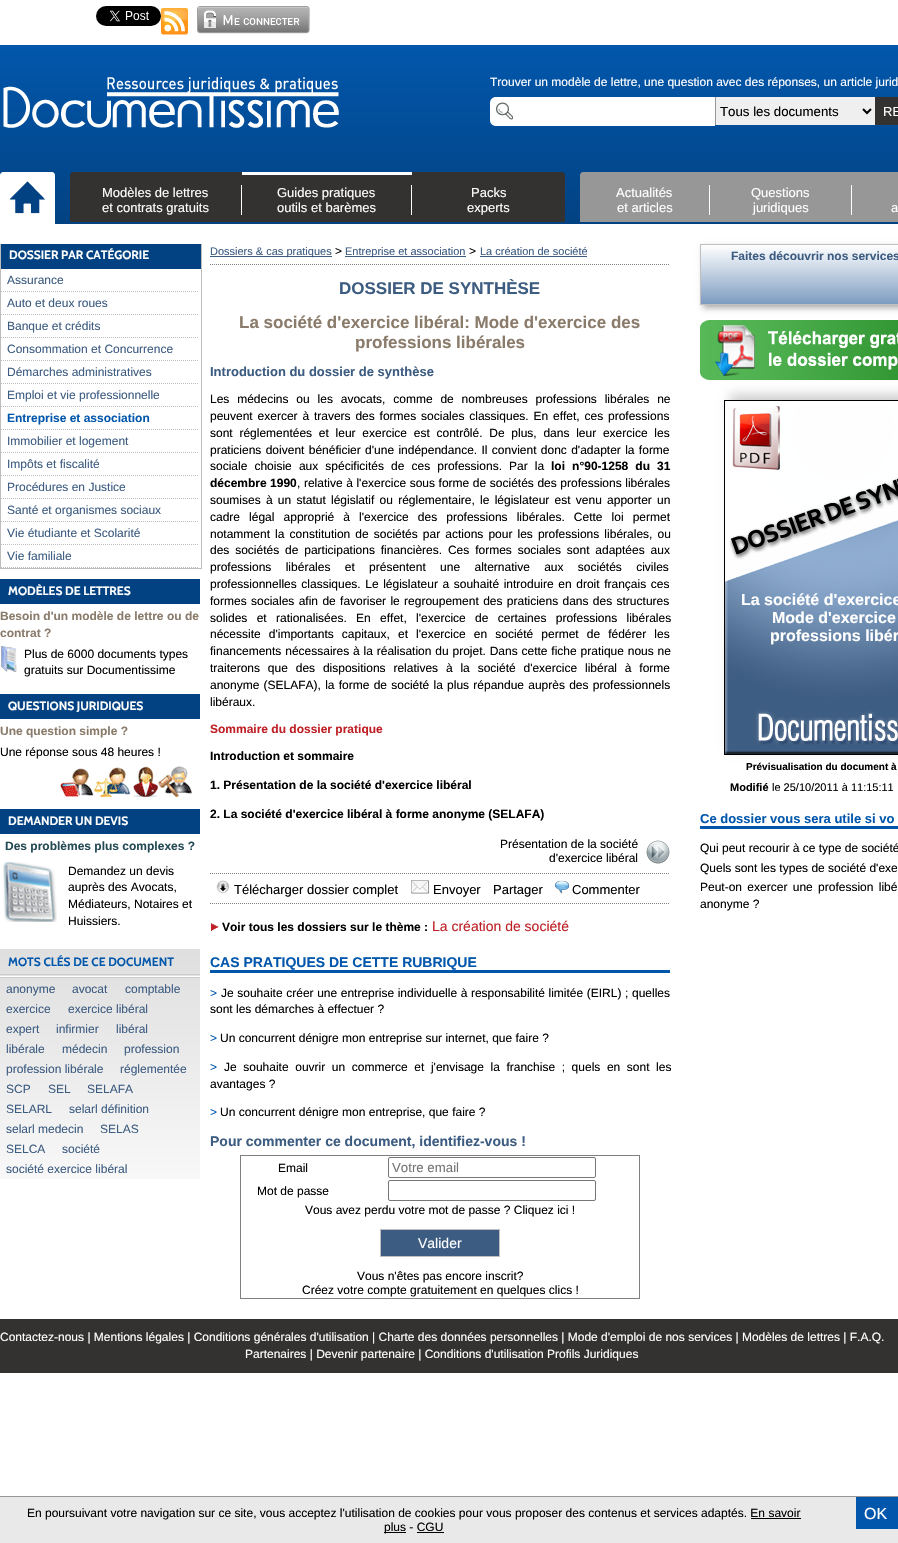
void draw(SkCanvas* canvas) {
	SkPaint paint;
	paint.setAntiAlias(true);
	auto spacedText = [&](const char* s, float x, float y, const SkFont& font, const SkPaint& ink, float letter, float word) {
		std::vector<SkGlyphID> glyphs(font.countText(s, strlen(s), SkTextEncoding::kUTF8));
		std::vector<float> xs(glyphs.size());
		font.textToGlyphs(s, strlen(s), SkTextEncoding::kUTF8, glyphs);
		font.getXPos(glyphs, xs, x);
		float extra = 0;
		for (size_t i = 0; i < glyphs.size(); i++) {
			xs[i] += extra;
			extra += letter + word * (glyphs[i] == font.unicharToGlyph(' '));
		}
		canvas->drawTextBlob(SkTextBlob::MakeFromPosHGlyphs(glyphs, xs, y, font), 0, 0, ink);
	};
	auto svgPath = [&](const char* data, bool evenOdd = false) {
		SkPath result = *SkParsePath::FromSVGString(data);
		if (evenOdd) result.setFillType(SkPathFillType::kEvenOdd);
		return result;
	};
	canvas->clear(0xffffffff);
	canvas->drawImageRect(SkImages::DeferredFromEncodedData(SkData::MakeFromFileName("img1.png")), SkRect::MakeXYWH(96, 6, 65, 20), SkSamplingOptions());
	canvas->drawImageRect(SkImages::DeferredFromEncodedData(SkData::MakeFromFileName("img2.png")), SkRect::MakeXYWH(161, 8, 27, 27), SkSamplingOptions());
	canvas->drawImageRect(SkImages::DeferredFromEncodedData(SkData::MakeFromFileName("img3.png")), SkRect::MakeXYWH(197, 6, 113, 28), SkSamplingOptions());
	{
		const SkColor colors[] = {0xff024282, 0xff0257ac};
		const float stops[] = {0, 1};
		const SkPoint ends[] = {{449, 224}, {449, 45}};
		paint.setShader(SkGradientShader::MakeLinear(ends, colors, stops, 2, SkTileMode::kClamp));
		paint.setAlpha(255);
	}
	canvas->drawRect(SkRect::MakeXYWH(0, 45, 898, 179), paint);
	canvas->drawImageRect(SkImages::DeferredFromEncodedData(SkData::MakeFromFileName("img4.png")), SkRect::MakeXYWH(3, 77, 336, 51), SkSamplingOptions());
	SkFont f1(fontMgr->matchFamilyStyle("Liberation Sans", SkFontStyle::Normal()), 12);
	f1.setSubpixel(true);
	paint.setShader(nullptr);
	paint.setColor(0xffffffff);
	canvas->drawString("Trouver un modèle de lettre, une question avec des réponses, un article jurid", 490, 86, f1, paint);
	canvas->drawPath(svgPath("M496 97H715V126H496C492.5 126 490 123.5 490 120V103C490 99.5 492.5 97 496 97Z"), paint);
	canvas->drawImageRect(SkImages::DeferredFromEncodedData(SkData::MakeFromFileName("img5.png")), SkRect::MakeXYWH(496, 102, 17, 18), SkSamplingOptions());
	paint.setColor(0xffefefef);
	canvas->drawRect(SkRect::MakeXYWH(716, 97, 159, 28), paint);
	paint.setColor(0xff989797);
	canvas->drawRect(SkRect::MakeXYWH(715, 97, 1, 28), paint);
	paint.setStroke(true);
	paint.setStrokeWidth(2);
	paint.setColor(0xff000000);
	canvas->drawPath(svgPath("M863 109L867 113L871 109"), paint);
	SkFont f2(fontMgr->matchFamilyStyle("Liberation Sans", SkFontStyle::Normal()), 13.25);
	f2.setSubpixel(true);
	paint.setStroke(false);
	canvas->drawString("Tous les documents", 720, 116, f2, paint);
	paint.setColor(0xff333231);
	canvas->drawRect(SkRect::MakeXYWH(875, 97, 23, 28), paint);
	SkFont f3(fontMgr->matchFamilyStyle("Liberation Sans", SkFontStyle::Normal()), 13);
	f3.setSubpixel(true);
	paint.setColor(0xffffffff);
	canvas->drawString("RE", 883, 116, f3, paint);
	canvas->drawPath(svgPath("M3 172H52C53.5 172 55 173.5 55 175V226H0V175C0 173.5 1.5 172 3 172Z"), paint);
	canvas->drawImageRect(SkImages::DeferredFromEncodedData(SkData::MakeFromFileName("img6.png")), SkRect::MakeXYWH(10, 181, 35, 33), SkSamplingOptions());
	paint.setColor(0xff333231);
	canvas->drawPath(svgPath("M73 172H562C563.5 172 565 173.5 565 175V222H70V175C70 173.5 71.5 172 73 172Z"), paint);
	paint.setColor(0xffffffff);
	canvas->drawRect(SkRect::MakeXYWH(241, 185, 1, 30), paint);
	canvas->drawString("Modèles de lettres", 102, 197, f3, paint);
	canvas->drawString("et contrats gratuits", 102, 212, f3, paint);
	canvas->drawRect(SkRect::MakeXYWH(242, 172, 170, 3), paint);
	canvas->drawRect(SkRect::MakeXYWH(411, 185, 1, 30), paint);
	canvas->drawString("Guides pratiques", 277, 197, f3, paint);
	canvas->drawString("outils et barèmes", 277, 212, f3, paint);
	canvas->drawString("Packs", 471, 197, f3, paint);
	canvas->drawString("experts", 467, 212, f3, paint);
	paint.setColor(0xff989797);
	canvas->drawPath(svgPath("M583 172H898C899.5 172 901 173.5 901 175V222H580V175C580 173.5 581.5 172 583 172Z"), paint);
	paint.setColor(0xffffffff);
	canvas->drawRect(SkRect::MakeXYWH(709, 185, 1, 30), paint);
	canvas->drawString("Actualités", 616, 197, f3, paint);
	canvas->drawString("et articles", 617, 212, f3, paint);
	canvas->drawRect(SkRect::MakeXYWH(851, 185, 1, 30), paint);
	canvas->drawString("Questions", 751, 197, f3, paint);
	canvas->drawString("juridiques", 753, 212, f3, paint);
	canvas->drawString("a", 891, 212, f3, paint);
	paint.setColor(0xffbebebe);
	canvas->drawRect(SkRect::MakeXYWH(201, 244, 1, 325), paint);
	canvas->drawRect(SkRect::MakeXYWH(0, 568, 202, 1), paint);
	canvas->drawRect(SkRect::MakeXYWH(0, 244, 1, 325), paint);
	paint.setColor(0xff024282);
	canvas->drawRect(SkRect::MakeXYWH(1, 244, 200, 25), paint);
	SkFont f4(fontMgr->matchFamilyStyle("Cabin", SkFontStyle::Bold()), 12);
	f4.setSubpixel(true);
	paint.setColor(0xffffffff);
	canvas->drawString("DOSSIER PAR CATÉGORIE", 9, 259, f4, paint);
	paint.setStroke(true);
	paint.setStrokeWidth(1);
	paint.setColor(0xffbebebe);
	paint.setPathEffect(SkDashPathEffect::Make({{1, 1}}, 0));
	canvas->drawPath(svgPath("M1 291.5H199"), paint);
	paint.setPathEffect(nullptr);
	paint.setStroke(false);
	paint.setColor(0xff3d5c81);
	canvas->drawString("Assurance", 7, 284, f1, paint);
	paint.setStroke(true);
	paint.setColor(0xffbebebe);
	paint.setPathEffect(SkDashPathEffect::Make({{1, 1}}, 0));
	canvas->drawPath(svgPath("M1 314.5H199"), paint);
	paint.setPathEffect(nullptr);
	paint.setStroke(false);
	paint.setColor(0xff3d5c81);
	canvas->drawString("Auto et deux roues", 7, 307, f1, paint);
	paint.setStroke(true);
	paint.setColor(0xffbebebe);
	paint.setPathEffect(SkDashPathEffect::Make({{1, 1}}, 0));
	canvas->drawPath(svgPath("M1 337.5H199"), paint);
	paint.setPathEffect(nullptr);
	paint.setStroke(false);
	paint.setColor(0xff3d5c81);
	canvas->drawString("Banque et crédits", 7, 330, f1, paint);
	paint.setStroke(true);
	paint.setColor(0xffbebebe);
	paint.setPathEffect(SkDashPathEffect::Make({{1, 1}}, 0));
	canvas->drawPath(svgPath("M1 360.5H199"), paint);
	paint.setPathEffect(nullptr);
	paint.setStroke(false);
	paint.setColor(0xff3d5c81);
	canvas->drawString("Consommation et Concurrence", 7, 353, f1, paint);
	paint.setStroke(true);
	paint.setColor(0xffbebebe);
	paint.setPathEffect(SkDashPathEffect::Make({{1, 1}}, 0));
	canvas->drawPath(svgPath("M1 383.5H199"), paint);
	paint.setPathEffect(nullptr);
	paint.setStroke(false);
	paint.setColor(0xff3d5c81);
	canvas->drawString("Démarches administratives", 7, 376, f1, paint);
	paint.setStroke(true);
	paint.setColor(0xffbebebe);
	paint.setPathEffect(SkDashPathEffect::Make({{1, 1}}, 0));
	canvas->drawPath(svgPath("M1 406.5H199"), paint);
	paint.setPathEffect(nullptr);
	paint.setStroke(false);
	paint.setColor(0xff3d5c81);
	canvas->drawString("Emploi et vie professionnelle", 7, 399, f1, paint);
	paint.setStroke(true);
	paint.setColor(0xffbebebe);
	paint.setPathEffect(SkDashPathEffect::Make({{1, 1}}, 0));
	canvas->drawPath(svgPath("M1 429.5H199"), paint);
	paint.setPathEffect(nullptr);
	SkFont f5(fontMgr->matchFamilyStyle("Liberation Sans", SkFontStyle::Bold()), 12);
	f5.setSubpixel(true);
	paint.setStroke(false);
	paint.setColor(0xff0257ac);
	canvas->drawString("Entreprise et association", 7, 422, f5, paint);
	paint.setStroke(true);
	paint.setColor(0xffbebebe);
	paint.setPathEffect(SkDashPathEffect::Make({{1, 1}}, 0));
	canvas->drawPath(svgPath("M1 452.5H199"), paint);
	paint.setPathEffect(nullptr);
	paint.setStroke(false);
	paint.setColor(0xff3d5c81);
	canvas->drawString("Immobilier et logement", 7, 445, f1, paint);
	paint.setStroke(true);
	paint.setColor(0xffbebebe);
	paint.setPathEffect(SkDashPathEffect::Make({{1, 1}}, 0));
	canvas->drawPath(svgPath("M1 475.5H199"), paint);
	paint.setPathEffect(nullptr);
	paint.setStroke(false);
	paint.setColor(0xff3d5c81);
	canvas->drawString("Impôts et fiscalité", 7, 468, f1, paint);
	paint.setStroke(true);
	paint.setColor(0xffbebebe);
	paint.setPathEffect(SkDashPathEffect::Make({{1, 1}}, 0));
	canvas->drawPath(svgPath("M1 498.5H199"), paint);
	paint.setPathEffect(nullptr);
	paint.setStroke(false);
	paint.setColor(0xff3d5c81);
	canvas->drawString("Procédures en Justice", 7, 491, f1, paint);
	paint.setStroke(true);
	paint.setColor(0xffbebebe);
	paint.setPathEffect(SkDashPathEffect::Make({{1, 1}}, 0));
	canvas->drawPath(svgPath("M1 521.5H199"), paint);
	paint.setPathEffect(nullptr);
	paint.setStroke(false);
	paint.setColor(0xff3d5c81);
	canvas->drawString("Santé et organismes sociaux", 7, 514, f1, paint);
	paint.setStroke(true);
	paint.setColor(0xffbebebe);
	paint.setPathEffect(SkDashPathEffect::Make({{1, 1}}, 0));
	canvas->drawPath(svgPath("M1 544.5H199"), paint);
	paint.setPathEffect(nullptr);
	paint.setStroke(false);
	paint.setColor(0xff3d5c81);
	canvas->drawString("Vie étudiante et Scolarité", 7, 537, f1, paint);
	paint.setStroke(true);
	paint.setColor(0xffbebebe);
	paint.setPathEffect(SkDashPathEffect::Make({{1, 1}}, 0));
	canvas->drawPath(svgPath("M1 567.5H199"), paint);
	paint.setPathEffect(nullptr);
	paint.setStroke(false);
	paint.setColor(0xff3d5c81);
	canvas->drawString("Vie familiale", 7, 560, f1, paint);
	paint.setColor(0xff024282);
	canvas->drawRect(SkRect::MakeXYWH(0, 579, 200, 25), paint);
	paint.setColor(0xffffffff);
	canvas->drawString("MODÈLES DE LETTRES", 8, 595, f4, paint);
	paint.setColor(0xff8a7b6b);
	canvas->drawString("Besoin d'un modèle de lettre ou de", 0, 620, f5, paint);
	canvas->drawString("contrat ?", 0, 637, f5, paint);
	canvas->drawImageRect(SkImages::DeferredFromEncodedData(SkData::MakeFromFileName("img7.png")), SkRect::MakeXYWH(1, 646, 16, 26), SkSamplingOptions());
	paint.setColor(0xff000000);
	canvas->drawString("Plus de 6000 documents types", 24, 658, f1, paint);
	canvas->drawString("gratuits sur Documentissime", 24, 674, f1, paint);
	paint.setColor(0xff024282);
	canvas->drawRect(SkRect::MakeXYWH(0, 694, 200, 25), paint);
	paint.setColor(0xffffffff);
	canvas->drawString("QUESTIONS JURIDIQUES", 8, 710, f4, paint);
	paint.setColor(0xff8a7b6b);
	canvas->drawString("Une question simple ?", 0, 735, f5, paint);
	paint.setColor(0xff000000);
	canvas->drawString("Une réponse sous 48 heures !", 0, 756, f1, paint);
	canvas->drawImageRect(SkImages::DeferredFromEncodedData(SkData::MakeFromFileName("img8.png")), SkRect::MakeXYWH(60, 766, 132, 32), SkSamplingOptions());
	paint.setColor(0xff024282);
	canvas->drawRect(SkRect::MakeXYWH(0, 809, 200, 25), paint);
	paint.setColor(0xffffffff);
	canvas->drawString("DEMANDER UN DEVIS", 8, 825, f4, paint);
	paint.setColor(0xff244a55);
	canvas->drawString("Des problèmes plus complexes ?", 5, 850, f5, paint);
	canvas->drawImageRect(SkImages::DeferredFromEncodedData(SkData::MakeFromFileName("img9.png")), SkRect::MakeXYWH(3, 862, 54, 60), SkSamplingOptions());
	paint.setColor(0xff000000);
	canvas->drawString("Demandez un devis", 68, 875, f1, paint);
	canvas->drawString("auprès des Avocats,", 68, 891, f1, paint);
	canvas->drawString("Médiateurs, Notaires et", 68, 908, f1, paint);
	canvas->drawString("Huissiers.", 68, 925, f1, paint);
	{
		const SkColor colors[] = {0xfff8f8f8, 0xffdfdfdf};
		const float stops[] = {0, 1};
		const SkPoint ends[] = {{100, 1179}, {100, 949}};
		paint.setShader(SkGradientShader::MakeLinear(ends, colors, stops, 2, SkTileMode::kClamp));
		paint.setAlpha(255);
	}
	canvas->drawRect(SkRect::MakeXYWH(0, 949, 200, 230), paint);
	paint.setShader(nullptr);
	paint.setColor(0xff0257ac);
	canvas->drawString("MOTS CLÉS DE CE DOCUMENT", 8, 966, f4, paint);
	paint.setColor(0xffcccccc);
	canvas->drawRect(SkRect::MakeXYWH(0, 974, 200, 1), paint);
	paint.setColor(0xffffffff);
	canvas->drawRect(SkRect::MakeXYWH(0, 976, 200, 1), paint);
	paint.setColor(0xffcccccc);
	canvas->drawRect(SkRect::MakeXYWH(0, 977, 200, 1), paint);
	paint.setColor(0xff3d5c81);
	canvas->drawString("anonyme", 6, 993, f1, paint);
	canvas->drawString("avocat", 72, 993, f1, paint);
	canvas->drawString("comptable", 125, 993, f1, paint);
	canvas->drawString("exercice", 6, 1013, f1, paint);
	canvas->drawString("exercice libéral", 68, 1013, f1, paint);
	canvas->drawString("expert", 6, 1033, f1, paint);
	canvas->drawString("infirmier", 56, 1033, f1, paint);
	canvas->drawString("libéral", 116, 1033, f1, paint);
	canvas->drawString("libérale", 6, 1053, f1, paint);
	canvas->drawString("médecin", 62, 1053, f1, paint);
	canvas->drawString("profession", 124, 1053, f1, paint);
	canvas->drawString("profession libérale", 6, 1073, f1, paint);
	canvas->drawString("réglementée", 120, 1073, f1, paint);
	canvas->drawString("SCP", 6, 1093, f1, paint);
	canvas->drawString("SEL", 48, 1093, f1, paint);
	canvas->drawString("SELAFA", 87, 1093, f1, paint);
	canvas->drawString("SELARL", 6, 1113, f1, paint);
	canvas->drawString("selarl définition", 69, 1113, f1, paint);
	canvas->drawString("selarl medecin", 6, 1133, f1, paint);
	canvas->drawString("SELAS", 100, 1133, f1, paint);
	canvas->drawString("SELCA", 6, 1153, f1, paint);
	canvas->drawString("société", 62, 1153, f1, paint);
	canvas->drawString("société exercice libéral", 6, 1173, f1, paint);
	paint.setStroke(true);
	paint.setColor(0xff808080);
	paint.setPathEffect(SkDashPathEffect::Make({{1, 1}}, 0));
	canvas->drawPath(svgPath("M210 264.5H670"), paint);
	paint.setPathEffect(nullptr);
	paint.setStroke(false);
	paint.setColor(0xff3d5c81);
	canvas->drawRect(SkRect::MakeXYWH(210, 256, 122, 1), paint);
	SkFont f6(fontMgr->matchFamilyStyle("Liberation Sans", SkFontStyle::Normal()), 11);
	f6.setSubpixel(true);
	canvas->drawString("Dossiers & cas pratiques", 210, 255, f6, paint);
	paint.setColor(0xff000000);
	canvas->drawString(">", 335, 255, f1, paint);
	paint.setColor(0xff3d5c81);
	canvas->drawRect(SkRect::MakeXYWH(345, 256, 121, 1), paint);
	canvas->drawString("Entreprise et association", 345, 255, f6, paint);
	paint.setColor(0xff000000);
	canvas->drawString(">", 469, 255, f1, paint);
	paint.setColor(0xff3d5c81);
	canvas->drawString("La création de société", 480, 255, f6, paint);
	canvas->drawRect(SkRect::MakeXYWH(480, 256, 107, 1), paint);
	SkFont f7(fontMgr->matchFamilyStyle("Liberation Sans", SkFontStyle::Bold()), 17);
	f7.setSubpixel(true);
	canvas->drawString("DOSSIER DE SYNTHÈSE", 339, 294, f7, paint);
	paint.setColor(0xff8a7b6b);
	canvas->drawString("La société d'exercice libéral: Mode d'exercice des", 239, 328, f7, paint);
	canvas->drawString("professions libérales", 355, 348, f7, paint);
	SkFont f8(fontMgr->matchFamilyStyle("Liberation Sans", SkFontStyle::Bold()), 13);
	f8.setSubpixel(true);
	paint.setColor(0xff3d5c81);
	canvas->drawString("Introduction du dossier de synthèse", 210, 376, f8, paint);
	paint.setColor(0xff000000);
	spacedText("Les médecins ou les avocats, comme de nombreuses professions libérales ne", 210, 403, f1, paint, 0, 4.5);
	spacedText("peuvent exercer à travers des formes sociales classiques. En effet, ces professions", 210, 420, f1, paint, 0, 1.5);
	spacedText("sont réglementées et leur exercice est contrôlé. De plus, dans leur exercice les", 210, 437, f1, paint, 0, 3.4);
	spacedText("praticiens doivent bénéficier d'une indépendance. Il convient donc d'adapter la forme", 210, 454, f1, paint, 0, 1);
	spacedText("sociale choisie aux spécificités de ces professions. Par la", 210, 470, f1, paint, 0, 3.75);
	spacedText("loi n°90-1258 du 31", 551, 470, f5, paint, 0, 3.75);
	canvas->drawString("décembre 1990", 210, 487, f5, paint);
	spacedText(", relative à l'exercice sous forme de sociétés des professions libérales", 297, 487, f1, paint, 0, 0.25);
	spacedText("soumises à un statut législatif ou réglementaire, le législateur est venu apporter un", 210, 504, f1, paint, 0, 1.9);
	spacedText("cadre légal approprié à l'exercice des professions libérales. Cette loi permet", 210, 521, f1, paint, 0, 5.75);
	spacedText("notamment la constitution de sociétés par actions pour les professions libérales, ou", 210, 538, f1, paint, 0, 1.75);
	spacedText("des sociétés de participations financières. Ces formes sociales sont adaptées aux", 210, 554, f1, paint, 0, 2.5);
	spacedText("professions libérales et présentent une alternative aux sociétés civiles", 210, 571, f1, paint, 0, 11);
	spacedText("professionnelles classiques. Le législateur a souhaité introduire en droit français ces", 210, 588, f1, paint, 0, 1.25);
	spacedText("formes sociales afin de favoriser le regroupement des praticiens dans des structures", 210, 605, f1, paint, 0, 1);
	spacedText("solides et rationalisées. En effet, l'exercice de certaines professions libérales", 210, 622, f1, paint, 0, 6);
	spacedText("nécessite d'importants capitaux, et l'exercice en société permet de fédérer les", 210, 638, f1, paint, 0, 4.75);
	spacedText("financements nécessaires à la réalisation du projet. Dans cette fiche pratique nous ne", 210, 655, f1, paint, 0, 0.5);
	spacedText("traiterons que des dispositions relatives à la société d'exercice libéral à forme", 210, 672, f1, paint, 0, 4.5);
	spacedText("anonyme (SELAFA), la forme de société la plus répandue auprès des professionnels", 210, 689, f1, paint, 0, 0.9);
	canvas->drawString("libéraux.", 210, 706, f1, paint);
	paint.setColor(0xffbf2026);
	canvas->drawString("Sommaire du dossier pratique", 210, 733, f5, paint);
	paint.setColor(0xff000000);
	canvas->drawString("Introduction et sommaire", 210, 760, f5, paint);
	canvas->drawString("1. Présentation de la société d'exercice libéral", 210, 789, f5, paint);
	canvas->drawString("2. La société d'exercice libéral à forme anonyme (SELAFA)", 210, 818, f5, paint);
	canvas->drawString("Présentation de la société", 500, 848, f1, paint);
	canvas->drawString("d'exercice libéral", 549, 862, f1, paint);
	canvas->drawImageRect(SkImages::DeferredFromEncodedData(SkData::MakeFromFileName("img10.png")), SkRect::MakeXYWH(646, 840, 24, 24), SkSamplingOptions());
	paint.setStroke(true);
	paint.setColor(0xff808080);
	paint.setPathEffect(SkDashPathEffect::Make({{1, 1}}, 0));
	canvas->drawPath(svgPath("M210 873.5H670"), paint);
	paint.setPathEffect(nullptr);
	paint.setPathEffect(SkDashPathEffect::Make({{1, 1}}, 0));
	canvas->drawPath(svgPath("M210 903.5H670"), paint);
	paint.setPathEffect(nullptr);
	canvas->drawImageRect(SkImages::DeferredFromEncodedData(SkData::MakeFromFileName("img11.png")), SkRect::MakeXYWH(216, 880, 14, 14), SkSamplingOptions());
	paint.setStroke(false);
	paint.setColor(0xff000000);
	canvas->drawString("Télécharger dossier complet", 234, 894, f3, paint);
	canvas->drawImageRect(SkImages::DeferredFromEncodedData(SkData::MakeFromFileName("img12.png")), SkRect::MakeXYWH(411, 880, 19, 14), SkSamplingOptions());
	canvas->drawString("Envoyer", 433, 894, f3, paint);
	canvas->drawString("Partager", 493, 894, f3, paint);
	canvas->drawImageRect(SkImages::DeferredFromEncodedData(SkData::MakeFromFileName("img13.png")), SkRect::MakeXYWH(555, 880, 14, 14), SkSamplingOptions());
	canvas->drawString("Commenter", 572, 894, f3, paint);
	canvas->drawImageRect(SkImages::DeferredFromEncodedData(SkData::MakeFromFileName("img14.png")), SkRect::MakeXYWH(211, 923, 8, 8), SkSamplingOptions());
	canvas->drawString("Voir tous les dossiers sur le thème :", 222, 931, f5, paint);
	SkFont f9(fontMgr->matchFamilyStyle("Liberation Sans", SkFontStyle::Normal()), 14);
	f9.setSubpixel(true);
	paint.setColor(0xffbf2026);
	canvas->drawString("La création de société", 432, 931, f9, paint);
	paint.setColor(0xff0257ac);
	canvas->drawRect(SkRect::MakeXYWH(210, 970, 460, 3), paint);
	SkFont f10(fontMgr->matchFamilyStyle("Liberation Sans", SkFontStyle::Bold()), 14);
	f10.setSubpixel(true);
	canvas->drawString("CAS PRATIQUES DE CETTE RUBRIQUE", 210, 967, f10, paint);
	canvas->drawString(">", 210, 997, f1, paint);
	paint.setColor(0xff000000);
	spacedText("Je souhaite créer une entreprise individuelle à responsabilité limitée (EIRL) ; quelles", 221, 997, f1, paint, 0, 0.25);
	canvas->drawString("sont les démarches à effectuer ?", 210, 1013, f1, paint);
	paint.setColor(0xff0257ac);
	canvas->drawString(">", 210, 1042, f1, paint);
	paint.setColor(0xff000000);
	canvas->drawString("Un concurrent dénigre mon entreprise sur internet, que faire ?", 220, 1042, f1, paint);
	paint.setColor(0xff0257ac);
	canvas->drawString(">", 210, 1071, f1, paint);
	paint.setColor(0xff000000);
	spacedText("Je souhaite ouvrir un commerce et j'envisage la franchise ; quels en sont les", 224, 1071, f1, paint, 0, 3.25);
	canvas->drawString("avantages ?", 210, 1088, f1, paint);
	paint.setColor(0xff0257ac);
	canvas->drawString(">", 210, 1116, f1, paint);
	paint.setColor(0xff000000);
	canvas->drawString("Un concurrent dénigre mon entreprise, que faire ?", 220, 1116, f1, paint);
	paint.setColor(0xff3d5c81);
	canvas->drawString("Pour commenter ce document, identifiez-vous !", 210, 1146, f10, paint);
	paint.setColor(0xff808080);
	canvas->drawRect(SkRect::MakeXYWH(240, 1155, 400, 1), paint);
	canvas->drawRect(SkRect::MakeXYWH(639, 1155, 1, 144), paint);
	canvas->drawRect(SkRect::MakeXYWH(240, 1298, 400, 1), paint);
	canvas->drawRect(SkRect::MakeXYWH(240, 1155, 1, 144), paint);
	paint.setColor(0xff000000);
	canvas->drawString("Email", 278, 1172, f1, paint);
	paint.setStroke(true);
	paint.setColor(0xff767676);
	canvas->drawRoundRect(SkRect::MakeXYWH(388.5, 1157.5, 207, 20), 1.5, 1.5, paint);
	paint.setStroke(false);
	paint.setColor(0xff757575);
	canvas->drawString("Votre email", 392, 1172, f2, paint);
	paint.setColor(0xff000000);
	canvas->drawString("Mot de passe", 257, 1195, f1, paint);
	paint.setStroke(true);
	paint.setColor(0xff767676);
	canvas->drawRoundRect(SkRect::MakeXYWH(388.5, 1180.5, 207, 20), 1.5, 1.5, paint);
	paint.setStroke(false);
	paint.setColor(0xff000000);
	canvas->drawString("Vous avez perdu votre mot de passe ? Cliquez ici !", 305, 1214, f1, paint);
	paint.setColor(0xff3d5c81);
	canvas->drawRect(SkRect::MakeXYWH(380.5, 1229.5, 119, 27), paint);
	paint.setStroke(true);
	paint.setColor(0xffc0c0c0);
	canvas->drawRect(SkRect::MakeXYWH(380.5, 1229.5, 119, 27), paint);
	paint.setStroke(false);
	paint.setColor(0xffffffff);
	canvas->drawString("Valider", 418, 1248, f9, paint);
	paint.setColor(0xff000000);
	canvas->drawString("Vous n'êtes pas encore inscrit?", 357, 1280, f1, paint);
	canvas->drawString("Créez votre compte gratuitement en quelques clics !", 302, 1294, f1, paint);
	paint.setColor(0xffaaaaaa);
	paint.setMaskFilter(SkMaskFilter::MakeBlur(kNormal_SkBlurStyle, 3));
	canvas->drawRect(SkRect::MakeXYWH(703, 247, 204, 61), paint);
	paint.setMaskFilter(nullptr);
	{
		const SkColor colors[] = {0xffffffff, 0xff7d9cc1};
		const float stops[] = {0, 1};
		const SkPoint ends[] = {{701, 245}, {701, 304}};
		paint.setShader(SkGradientShader::MakeLinear(ends, colors, stops, 2, SkTileMode::kClamp));
		paint.setAlpha(255);
	}
	canvas->drawRect(SkRect::MakeXYWH(701, 245, 197, 59), paint);
	paint.setStroke(true);
	paint.setShader(nullptr);
	paint.setColor(0xffc0c0c0);
	canvas->drawRect(SkRect::MakeXYWH(700.5, 244.5, 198, 60), paint);
	paint.setStroke(false);
	paint.setColor(0xff3d5c81);
	canvas->drawString("Faites découvrir nos services", 731, 260, f5, paint);
	canvas->drawImageRect(SkImages::DeferredFromEncodedData(SkData::MakeFromFileName("img15.png")), SkRect::MakeXYWH(700, 320, 198, 60), SkSamplingOptions());
	canvas->save();
	canvas->clipPath(svgPath("M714 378H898V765H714ZM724 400H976V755H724Z", true), true);
	paint.setColor(0xffd0d0d0);
	paint.setMaskFilter(SkMaskFilter::MakeBlur(kNormal_SkBlurStyle, 5));
	canvas->drawRect(SkRect::MakeXYWH(730, 394, 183, 355), paint);
	paint.setMaskFilter(nullptr);
	canvas->restore();
	paint.setStroke(true);
	paint.setColor(0xff000000);
	canvas->drawRect(SkRect::MakeXYWH(724.5, 400.5, 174, 354), paint);
	canvas->drawImageRect(SkImages::DeferredFromEncodedData(SkData::MakeFromFileName("img16.png")), SkRect::MakeXYWH(725, 405, 173, 349), SkSamplingOptions());
	SkFont f11(fontMgr->matchFamilyStyle("Liberation Sans", SkFontStyle::Bold()), 16);
	f11.setSubpixel(true);
	paint.setStroke(false);
	paint.setColor(0xffffffff);
	canvas->drawString("La société d'exercice", 741, 605, f11, paint);
	canvas->drawString("Mode d'exercice", 772, 623, f11, paint);
	canvas->drawString("professions libér", 770, 641, f11, paint);
	SkFont f12(fontMgr->matchFamilyStyle("Liberation Sans", SkFontStyle::Bold()), 10);
	f12.setSubpixel(true);
	paint.setColor(0xff000000);
	canvas->drawString("Prévisualisation du document à", 746, 770, f12, paint);
	SkFont f13(fontMgr->matchFamilyStyle("Liberation Sans", SkFontStyle::Bold()), 11);
	f13.setSubpixel(true);
	canvas->drawString("Modifié", 730, 791, f13, paint);
	canvas->drawString("le 25/10/2011 à 11:15:11", 772, 791, f6, paint);
	paint.setColor(0xff0257ac);
	canvas->drawRect(SkRect::MakeXYWH(700, 826, 198, 3), paint);
	canvas->drawString("Ce dossier vous sera utile si vo", 700, 823, f8, paint);
	paint.setColor(0xff000000);
	canvas->drawString("Qui peut recourir à ce type de société", 700, 852, f1, paint);
	canvas->drawString("Quels sont les types de société d'exe", 700, 872, f1, paint);
	spacedText("Peut-on exercer une profession libé", 700, 891, f1, paint, 0, 2);
	canvas->drawString("anonyme ?", 700, 908, f1, paint);
	paint.setColor(0xff333231);
	canvas->drawRect(SkRect::MakeXYWH(0, 1319, 898, 54), paint);
	paint.setColor(0xffffffff);
	canvas->drawString("Contactez-nous | Mentions légales | Conditions générales d'utilisation | Charte des données personnelles | Mode d'emploi de nos services | Modèles de lettres | F.A.Q.", 0, 1341, f1, paint);
	canvas->drawString("Partenaires | Devenir partenaire | Conditions d'utilisation Profils Juridiques", 245, 1358, f1, paint);
	paint.setColor(0xffe9e9e9);
	canvas->drawRect(SkRect::MakeXYWH(0, 1497, 898, 46), paint);
	paint.setColor(0xff979797);
	canvas->drawRect(SkRect::MakeXYWH(0, 1496, 898, 1), paint);
	paint.setColor(0xff000000);
	canvas->drawString("En poursuivant votre navigation sur ce site, vous acceptez l'utilisation de cookies pour vous proposer des contenus et services adaptés. En savoir", 27, 1517, f1, paint);
	canvas->drawRect(SkRect::MakeXYWH(384, 1532, 22, 1), paint);
	canvas->drawString("plus - CGU", 384, 1531, f1, paint);
	canvas->drawRect(SkRect::MakeXYWH(751, 1518, 50, 1), paint);
	canvas->drawRect(SkRect::MakeXYWH(417, 1532, 27, 1), paint);
	paint.setColor(0xff0257ac);
	canvas->drawRect(SkRect::MakeXYWH(856, 1497, 42, 32), paint);
	SkFont f14(fontMgr->matchFamilyStyle("Liberation Sans", SkFontStyle::Normal()), 16);
	f14.setSubpixel(true);
	paint.setColor(0xffffffff);
	canvas->drawString("OK", 864, 1519, f14, paint);
}
